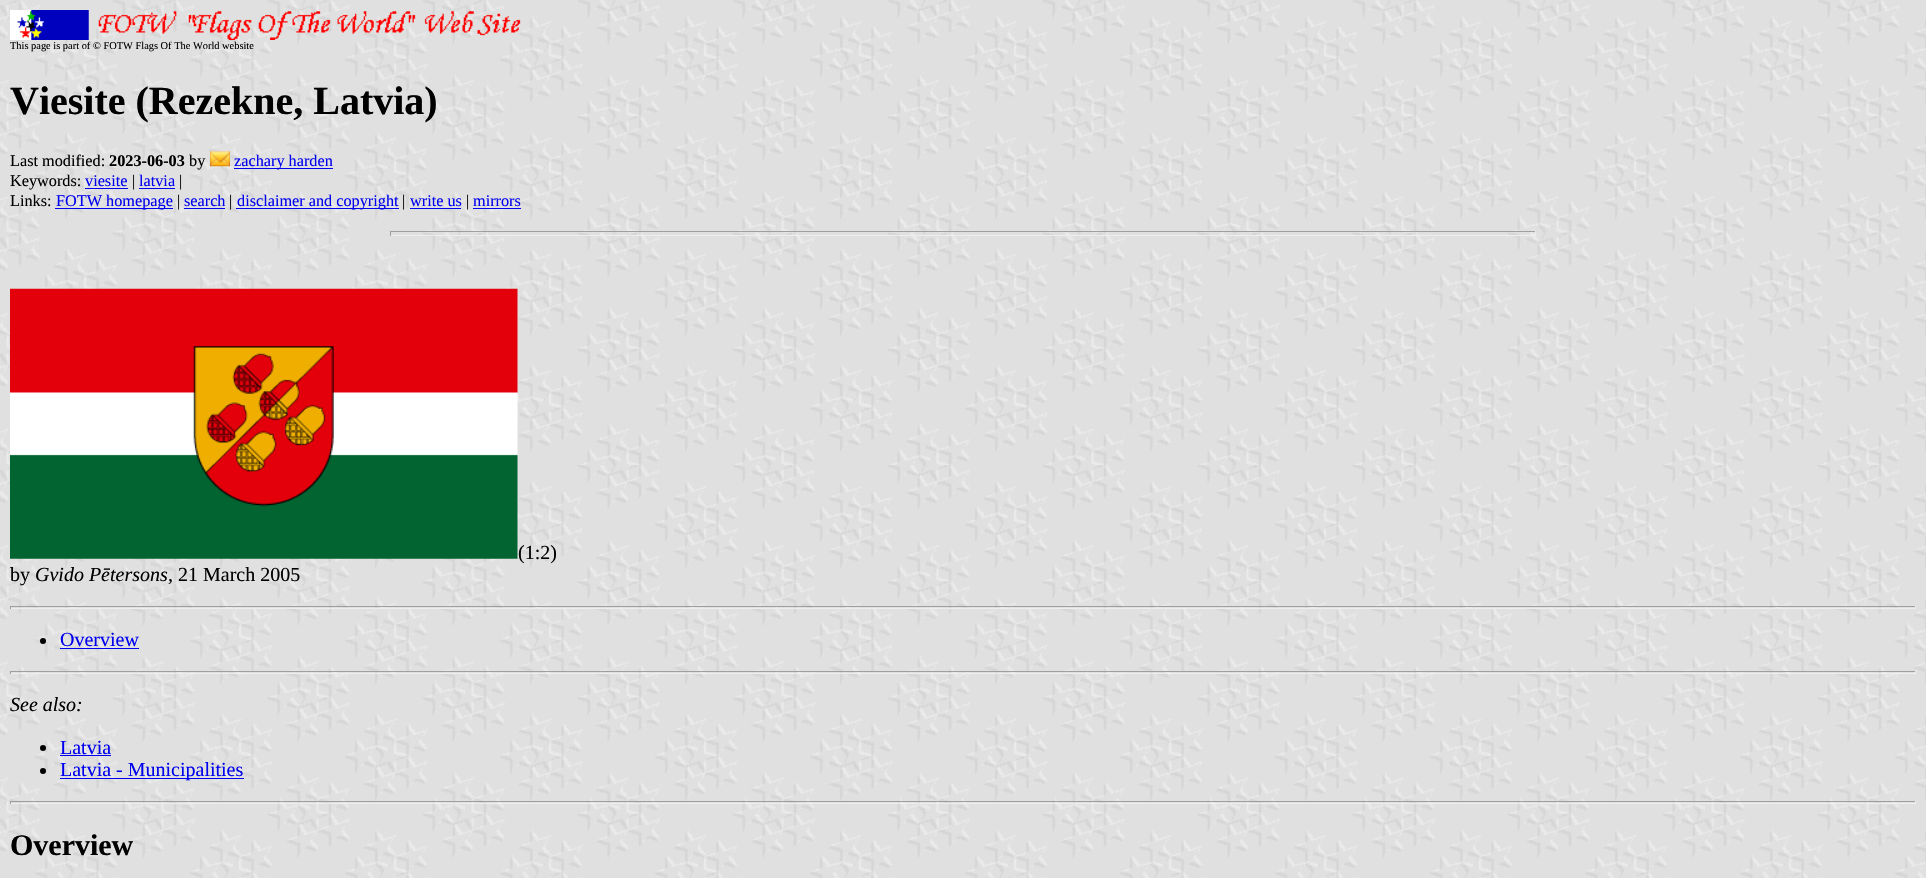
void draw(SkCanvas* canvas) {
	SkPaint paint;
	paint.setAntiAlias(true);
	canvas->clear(0xffffffff);
	canvas->drawImageRect(SkImages::DeferredFromEncodedData(SkData::MakeFromFileName("img1.png")), SkRect::MakeXYWH(0, 0, 1926, 878), SkSamplingOptions());
	canvas->drawImageRect(SkImages::DeferredFromEncodedData(SkData::MakeFromFileName("img2.png")), SkRect::MakeXYWH(10, 10, 511, 30), SkSamplingOptions());
	SkFont f1(fontMgr->matchFamilyStyle("Liberation Serif", SkFontStyle::Normal()), 10.4);
	f1.setSubpixel(true);
	paint.setColor(0xff000000);
	canvas->drawString("This page is part of © FOTW Flags Of The World website", 10, 49, f1, paint);
	SkFont f2(fontMgr->matchFamilyStyle("Liberation Serif", SkFontStyle::Bold()), 40);
	f2.setSubpixel(true);
	canvas->drawString("Viesite (Rezekne, Latvia)", 10, 114, f2, paint);
	SkFont f3(fontMgr->matchFamilyStyle("Liberation Serif", SkFontStyle::Normal()), 16.25);
	f3.setSubpixel(true);
	canvas->drawString("Last modified:", 10, 166, f3, paint);
	SkFont f4(fontMgr->matchFamilyStyle("Liberation Serif", SkFontStyle::Bold()), 16.25);
	f4.setSubpixel(true);
	canvas->drawString("2023-06-03", 109, 166, f4, paint);
	canvas->drawString("by", 189, 166, f3, paint);
	canvas->drawImageRect(SkImages::DeferredFromEncodedData(SkData::MakeFromFileName("img3.png")), SkRect::MakeXYWH(210, 151, 20, 16), SkSamplingOptions());
	paint.setColor(0xff0000ee);
	canvas->drawRect(SkRect::MakeXYWH(234, 168, 99, 1), paint);
	canvas->drawString("zachary harden", 234, 166, f3, paint);
	paint.setColor(0xff000000);
	canvas->drawString("Keywords:", 10, 186, f3, paint);
	paint.setColor(0xff0000ee);
	canvas->drawString("viesite", 85, 186, f3, paint);
	canvas->drawRect(SkRect::MakeXYWH(85, 188, 43, 1), paint);
	paint.setColor(0xff000000);
	canvas->drawString("|", 132, 186, f3, paint);
	paint.setColor(0xff0000ee);
	canvas->drawString("latvia", 139, 186, f3, paint);
	canvas->drawRect(SkRect::MakeXYWH(139, 188, 36, 1), paint);
	paint.setColor(0xff000000);
	canvas->drawString("|", 179, 186, f3, paint);
	canvas->drawString("Links:", 10, 206, f3, paint);
	paint.setColor(0xff0000ee);
	canvas->drawRect(SkRect::MakeXYWH(55, 208, 118, 1), paint);
	canvas->drawString("FOTW homepage", 56, 206, f3, paint);
	paint.setColor(0xff000000);
	canvas->drawString("|", 177, 206, f3, paint);
	paint.setColor(0xff0000ee);
	canvas->drawString("search", 184, 206, f3, paint);
	canvas->drawRect(SkRect::MakeXYWH(184, 208, 41, 1), paint);
	paint.setColor(0xff000000);
	canvas->drawString("|", 229, 206, f3, paint);
	paint.setColor(0xff0000ee);
	canvas->drawRect(SkRect::MakeXYWH(236, 208, 163, 1), paint);
	canvas->drawString("disclaimer and copyright", 237, 206, f3, paint);
	paint.setColor(0xff000000);
	canvas->drawString("|", 402, 206, f3, paint);
	paint.setColor(0xff0000ee);
	canvas->drawString("write us", 410, 206, f3, paint);
	canvas->drawRect(SkRect::MakeXYWH(410, 208, 51, 1), paint);
	paint.setColor(0xff000000);
	canvas->drawString("|", 466, 206, f3, paint);
	paint.setColor(0xff0000ee);
	canvas->drawString("mirrors", 473, 206, f3, paint);
	canvas->drawRect(SkRect::MakeXYWH(473, 208, 48, 1), paint);
	paint.setColor(0xff9f9f9f);
	canvas->drawRect(SkRect::MakeXYWH(390, 231, 1146, 1), paint);
	paint.setColor(0xffeeeeee);
	canvas->drawRect(SkRect::MakeXYWH(1535, 231, 1, 5), paint);
	canvas->drawRect(SkRect::MakeXYWH(390, 235, 1146, 1), paint);
	paint.setColor(0xff9f9f9f);
	canvas->drawRect(SkRect::MakeXYWH(390, 231, 1, 5), paint);
	canvas->drawImageRect(SkImages::DeferredFromEncodedData(SkData::MakeFromFileName("img4.png")), SkRect::MakeXYWH(10, 288, 508, 271), SkSamplingOptions());
	SkFont f5(fontMgr->matchFamilyStyle("Liberation Serif", SkFontStyle::Normal()), 20);
	f5.setSubpixel(true);
	paint.setColor(0xff000000);
	canvas->drawString("(1:2)", 518, 559, f5, paint);
	canvas->drawString("by", 10, 581, f5, paint);
	SkFont f6(fontMgr->matchFamilyStyle("Liberation Serif", SkFontStyle::Italic()), 20);
	f6.setSubpixel(true);
	canvas->drawString("Gvido Pētersons", 35, 581, f6, paint);
	canvas->drawString(", 21 March 2005", 168, 581, f5, paint);
	paint.setColor(0xff9f9f9f);
	canvas->drawRect(SkRect::MakeXYWH(10, 606, 1906, 1), paint);
	paint.setColor(0xffeeeeee);
	canvas->drawRect(SkRect::MakeXYWH(1915, 606, 1, 3), paint);
	canvas->drawRect(SkRect::MakeXYWH(10, 608, 1906, 1), paint);
	paint.setColor(0xff9f9f9f);
	canvas->drawRect(SkRect::MakeXYWH(10, 606, 1, 3), paint);
	paint.setColor(0xff000000);
	canvas->drawCircle(43, 641, 3, paint);
	paint.setColor(0xff0000ee);
	canvas->drawString("Overview", 60, 646, f5, paint);
	canvas->drawRect(SkRect::MakeXYWH(60, 648, 79, 1), paint);
	paint.setColor(0xff9f9f9f);
	canvas->drawRect(SkRect::MakeXYWH(10, 671, 1906, 1), paint);
	paint.setColor(0xffeeeeee);
	canvas->drawRect(SkRect::MakeXYWH(1915, 671, 1, 3), paint);
	canvas->drawRect(SkRect::MakeXYWH(10, 673, 1906, 1), paint);
	paint.setColor(0xff9f9f9f);
	canvas->drawRect(SkRect::MakeXYWH(10, 671, 1, 3), paint);
	paint.setColor(0xff000000);
	canvas->drawString("See also:", 10, 711, f6, paint);
	canvas->drawCircle(43, 748, 3, paint);
	paint.setColor(0xff0000ee);
	canvas->drawString("Latvia", 60, 754, f5, paint);
	canvas->drawRect(SkRect::MakeXYWH(60, 755, 51, 1), paint);
	paint.setColor(0xff000000);
	canvas->drawCircle(43, 771, 3, paint);
	paint.setColor(0xff0000ee);
	canvas->drawRect(SkRect::MakeXYWH(60, 778, 184, 1), paint);
	canvas->drawString("Latvia - Municipalities", 60, 776, f5, paint);
	paint.setColor(0xff9f9f9f);
	canvas->drawRect(SkRect::MakeXYWH(10, 801, 1906, 1), paint);
	paint.setColor(0xffeeeeee);
	canvas->drawRect(SkRect::MakeXYWH(1915, 801, 1, 3), paint);
	canvas->drawRect(SkRect::MakeXYWH(10, 803, 1906, 1), paint);
	paint.setColor(0xff9f9f9f);
	canvas->drawRect(SkRect::MakeXYWH(10, 801, 1, 3), paint);
	SkFont f7(fontMgr->matchFamilyStyle("Liberation Serif", SkFontStyle::Bold()), 30);
	f7.setSubpixel(true);
	paint.setColor(0xff000000);
	canvas->drawString("Overview", 10, 855, f7, paint);
}
